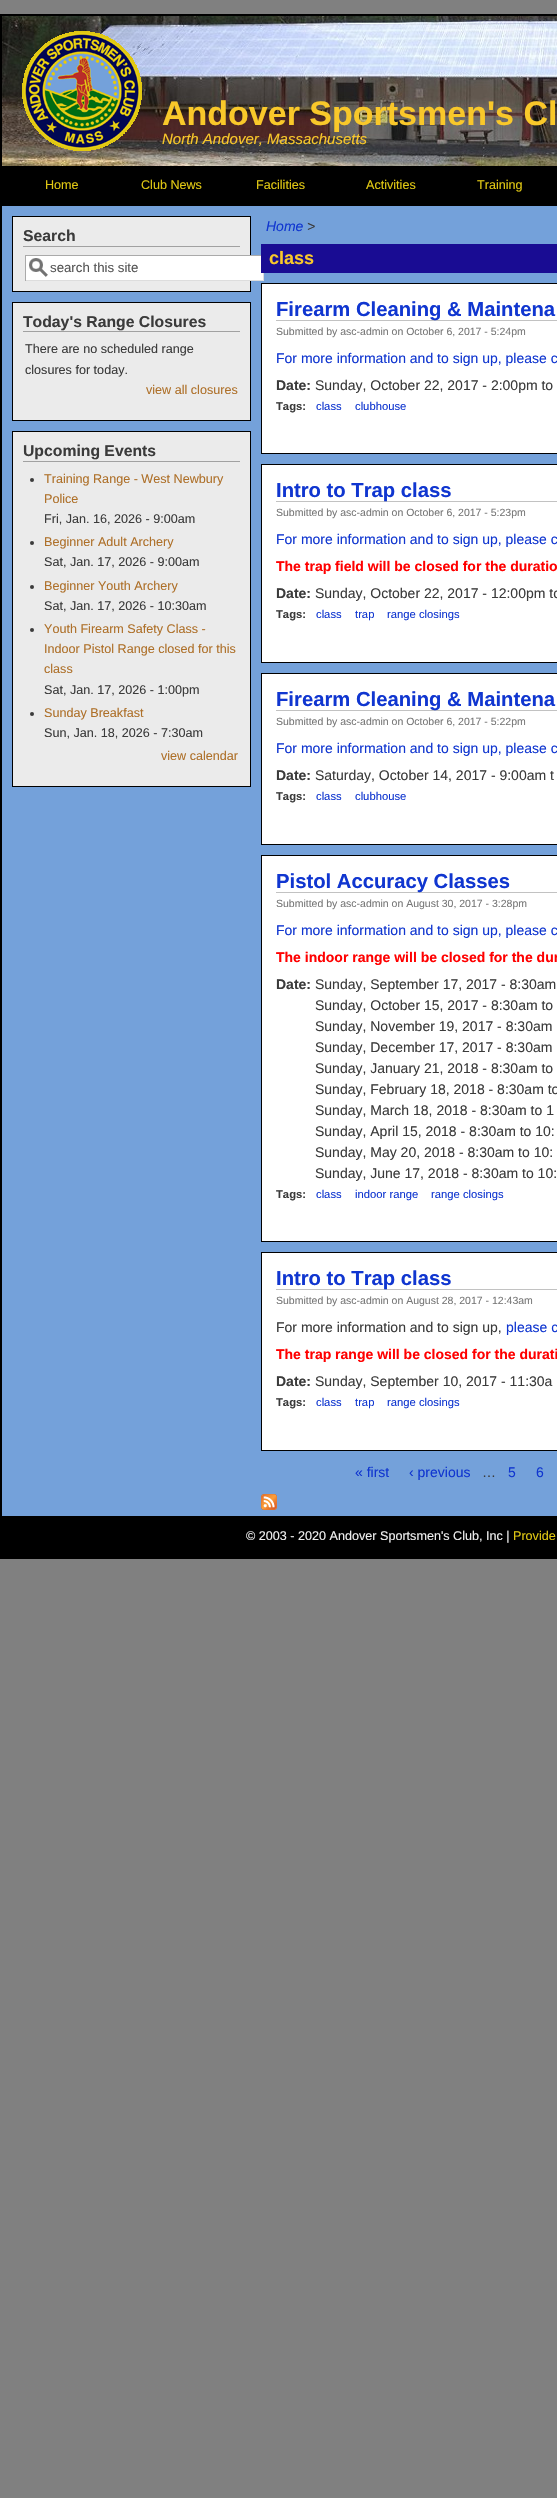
void draw(SkCanvas* canvas) {
	SkPaint paint;
	paint.setAntiAlias(true);
	canvas->clear(0xff808080);
	paint.setColor(0xff74a1da);
	canvas->drawRect(SkRect::MakeXYWH(2, 206, 555, 1310), paint);
	paint.setStroke(true);
	paint.setStrokeWidth(2);
	paint.setColor(0xff000000);
	canvas->drawRect(SkRect::MakeXYWH(1, 15, 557, 1543), paint);
	canvas->drawImageRect(SkImages::DeferredFromEncodedData(SkData::MakeFromFileName("img1.png")), SkRect::MakeXYWH(2, 16, 555, 150), SkSamplingOptions());
	canvas->drawImageRect(SkImages::DeferredFromEncodedData(SkData::MakeFromFileName("img2.png")), SkRect::MakeXYWH(22, 31, 120, 120), SkSamplingOptions());
	SkFont f1(fontMgr->matchFamilyStyle("Liberation Sans", SkFontStyle::Bold()), 34);
	f1.setSubpixel(true);
	paint.setStroke(false);
	paint.setColor(0xfff9c82a);
	canvas->drawString("Andover Sportsmen's Cl", 162, 125, f1, paint);
	SkFont f2(fontMgr->matchFamilyStyle("Liberation Sans", SkFontStyle::Italic()), 15);
	f2.setSubpixel(true);
	canvas->drawString("North Andover, Massachusetts", 162, 144, f2, paint);
	paint.setColor(0xff000000);
	canvas->drawRect(SkRect::MakeXYWH(2, 166, 555, 40), paint);
	SkFont f3(fontMgr->matchFamilyStyle("Liberation Sans", SkFontStyle::Normal()), 12.6);
	f3.setSubpixel(true);
	paint.setColor(0xffe1c813);
	canvas->drawString("Home", 45, 189, f3, paint);
	canvas->drawString("Club News", 141, 189, f3, paint);
	canvas->drawString("Facilities", 256, 189, f3, paint);
	canvas->drawString("Activities", 366, 189, f3, paint);
	canvas->drawString("Training", 477, 189, f3, paint);
	paint.setColor(0xffebebeb);
	canvas->drawRect(SkRect::MakeXYWH(12.5, 216.5, 238, 75), paint);
	paint.setStroke(true);
	paint.setStrokeWidth(1);
	paint.setColor(0xff000000);
	canvas->drawRect(SkRect::MakeXYWH(12.5, 216.5, 238, 75), paint);
	paint.setStroke(false);
	paint.setColor(0xffa1a1a1);
	canvas->drawRect(SkRect::MakeXYWH(23, 246, 217, 1), paint);
	SkFont f4(fontMgr->matchFamilyStyle("Liberation Sans", SkFontStyle::Bold()), 15.75);
	f4.setSubpixel(true);
	paint.setColor(0xff3b3b3b);
	canvas->drawString("Search", 23, 241, f4, paint);
	paint.setColor(0xffffffff);
	canvas->drawRect(SkRect::MakeXYWH(26, 256, 237, 24), paint);
	canvas->drawImageRect(SkImages::DeferredFromEncodedData(SkData::MakeFromFileName("img3.png")), SkRect::MakeXYWH(29, 258, 19, 19), SkSamplingOptions());
	paint.setColor(0xffaaaaaa);
	canvas->drawRect(SkRect::MakeXYWH(25, 255, 239, 1), paint);
	paint.setColor(0xffdddddd);
	canvas->drawRect(SkRect::MakeXYWH(263, 273, 1, 8), paint);
	canvas->drawRect(SkRect::MakeXYWH(25, 280, 239, 1), paint);
	paint.setColor(0xffaaaaaa);
	canvas->drawRect(SkRect::MakeXYWH(25, 255, 1, 26), paint);
	SkFont f5(fontMgr->matchFamilyStyle("Liberation Sans", SkFontStyle::Normal()), 13.25);
	f5.setSubpixel(true);
	paint.setColor(0xff555555);
	canvas->drawString("search this site", 50, 272, f5, paint);
	paint.setColor(0xffebebeb);
	canvas->drawRect(SkRect::MakeXYWH(12.5, 302.5, 238, 118), paint);
	paint.setStroke(true);
	paint.setColor(0xff000000);
	canvas->drawRect(SkRect::MakeXYWH(12.5, 302.5, 238, 118), paint);
	paint.setStroke(false);
	paint.setColor(0xffa1a1a1);
	canvas->drawRect(SkRect::MakeXYWH(23, 331, 217, 1), paint);
	paint.setColor(0xff3b3b3b);
	canvas->drawString("Today's Range Closures", 23, 327, f4, paint);
	canvas->drawString("There are no scheduled range", 25, 353, f3, paint);
	canvas->drawString("closures for today.", 25, 374, f3, paint);
	paint.setColor(0xffae7029);
	canvas->drawString("view all closures", 146, 394, f3, paint);
	paint.setColor(0xffebebeb);
	canvas->drawRect(SkRect::MakeXYWH(12.5, 431.5, 238, 355), paint);
	paint.setStroke(true);
	paint.setColor(0xff000000);
	canvas->drawRect(SkRect::MakeXYWH(12.5, 431.5, 238, 355), paint);
	paint.setStroke(false);
	paint.setColor(0xffa1a1a1);
	canvas->drawRect(SkRect::MakeXYWH(23, 461, 217, 1), paint);
	paint.setColor(0xff3b3b3b);
	canvas->drawString("Upcoming Events", 23, 456, f4, paint);
	canvas->drawCircle(32, 480, 2, paint);
	paint.setColor(0xffae7029);
	canvas->drawString("Training Range - West Newbury", 44, 483, f3, paint);
	canvas->drawString("Police", 44, 503, f3, paint);
	paint.setColor(0xff3b3b3b);
	canvas->drawString("Fri, Jan. 16, 2026 - 9:00am", 44, 523, f3, paint);
	canvas->drawCircle(32, 543, 2, paint);
	paint.setColor(0xffae7029);
	canvas->drawString("Beginner Adult Archery", 44, 546, f3, paint);
	paint.setColor(0xff3b3b3b);
	canvas->drawString("Sat, Jan. 17, 2026 - 9:00am", 44, 566, f3, paint);
	canvas->drawCircle(32, 587, 2, paint);
	paint.setColor(0xffae7029);
	canvas->drawString("Beginner Youth Archery", 44, 590, f3, paint);
	paint.setColor(0xff3b3b3b);
	canvas->drawString("Sat, Jan. 17, 2026 - 10:30am", 44, 610, f3, paint);
	canvas->drawCircle(32, 630, 2, paint);
	paint.setColor(0xffae7029);
	canvas->drawString("Youth Firearm Safety Class -", 44, 633, f3, paint);
	canvas->drawString("Indoor Pistol Range closed for this", 44, 653, f3, paint);
	canvas->drawString("class", 44, 673, f3, paint);
	paint.setColor(0xff3b3b3b);
	canvas->drawString("Sat, Jan. 17, 2026 - 1:00pm", 44, 694, f3, paint);
	canvas->drawCircle(32, 714, 2, paint);
	paint.setColor(0xffae7029);
	canvas->drawString("Sunday Breakfast", 44, 717, f3, paint);
	paint.setColor(0xff3b3b3b);
	canvas->drawString("Sun, Jan. 18, 2026 - 7:30am", 44, 737, f3, paint);
	paint.setColor(0xffae7029);
	canvas->drawString("view calendar", 161, 760, f3, paint);
	SkFont f6(fontMgr->matchFamilyStyle("Liberation Sans", SkFontStyle::Italic()), 14);
	f6.setSubpixel(true);
	paint.setColor(0xff1036d0);
	canvas->drawString("Home", 266, 231, f6, paint);
	paint.setColor(0xff3b3b3b);
	canvas->drawString(">", 307, 231, f6, paint);
	paint.setColor(0xff190c93);
	canvas->drawRect(SkRect::MakeXYWH(261, 244, 296, 29), paint);
	SkFont f7(fontMgr->matchFamilyStyle("Liberation Sans", SkFontStyle::Bold()), 18);
	f7.setSubpixel(true);
	paint.setColor(0xfff9c82a);
	canvas->drawString("class", 269, 264, f7, paint);
	paint.setColor(0xffffffff);
	canvas->drawRect(SkRect::MakeXYWH(261.5, 283.5, 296, 170), paint);
	paint.setStroke(true);
	paint.setColor(0xff000000);
	canvas->drawRect(SkRect::MakeXYWH(261.5, 283.5, 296, 170), paint);
	paint.setStroke(false);
	paint.setColor(0xffc2c2c2);
	canvas->drawRect(SkRect::MakeXYWH(276, 320, 281, 1), paint);
	SkFont f8(fontMgr->matchFamilyStyle("Liberation Sans", SkFontStyle::Bold()), 20.25);
	f8.setSubpixel(true);
	paint.setColor(0xff1036d0);
	canvas->drawString("Firearm Cleaning & Maintena", 276, 316, f8, paint);
	SkFont f9(fontMgr->matchFamilyStyle("Liberation Sans", SkFontStyle::Normal()), 10.5);
	f9.setSubpixel(true);
	paint.setColor(0xff777777);
	canvas->drawString("Submitted by asc-admin on October 6, 2017 - 5:24pm", 276, 335, f9, paint);
	SkFont f10(fontMgr->matchFamilyStyle("Liberation Sans", SkFontStyle::Normal()), 14);
	f10.setSubpixel(true);
	paint.setColor(0xff1036d0);
	canvas->drawString("For more information and to sign up, please c", 276, 363, f10, paint);
	SkFont f11(fontMgr->matchFamilyStyle("Liberation Sans", SkFontStyle::Bold()), 14);
	f11.setSubpixel(true);
	paint.setColor(0xff3b3b3b);
	canvas->drawString("Date:", 276, 390, f11, paint);
	canvas->drawString("Sunday, October 22, 2017 - 2:00pm to", 315, 390, f10, paint);
	SkFont f12(fontMgr->matchFamilyStyle("Liberation Sans", SkFontStyle::Bold()), 11.25);
	f12.setSubpixel(true);
	canvas->drawString("Tags:", 276, 410, f12, paint);
	SkFont f13(fontMgr->matchFamilyStyle("Liberation Sans", SkFontStyle::Normal()), 11.25);
	f13.setSubpixel(true);
	paint.setColor(0xff1036d0);
	canvas->drawString("class", 316, 410, f13, paint);
	canvas->drawString("clubhouse", 355, 410, f13, paint);
	paint.setColor(0xffffffff);
	canvas->drawRect(SkRect::MakeXYWH(261.5, 464.5, 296, 198), paint);
	paint.setStroke(true);
	paint.setColor(0xff000000);
	canvas->drawRect(SkRect::MakeXYWH(261.5, 464.5, 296, 198), paint);
	paint.setStroke(false);
	paint.setColor(0xffc2c2c2);
	canvas->drawRect(SkRect::MakeXYWH(276, 501, 281, 1), paint);
	paint.setColor(0xff1036d0);
	canvas->drawString("Intro to Trap class", 276, 497, f8, paint);
	paint.setColor(0xff777777);
	canvas->drawString("Submitted by asc-admin on October 6, 2017 - 5:23pm", 276, 516, f9, paint);
	paint.setColor(0xff1036d0);
	canvas->drawString("For more information and to sign up, please c", 276, 544, f10, paint);
	paint.setColor(0xffff0000);
	canvas->drawString("The trap field will be closed for the duratio", 276, 571, f11, paint);
	paint.setColor(0xff3b3b3b);
	canvas->drawString("Date:", 276, 598, f11, paint);
	canvas->drawString("Sunday, October 22, 2017 - 12:00pm to", 315, 598, f10, paint);
	canvas->drawString("Tags:", 276, 618, f12, paint);
	paint.setColor(0xff1036d0);
	canvas->drawString("class", 316, 618, f13, paint);
	canvas->drawString("trap", 355, 618, f13, paint);
	canvas->drawString("range closings", 387, 618, f13, paint);
	paint.setColor(0xffffffff);
	canvas->drawRect(SkRect::MakeXYWH(261.5, 673.5, 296, 171), paint);
	paint.setStroke(true);
	paint.setColor(0xff000000);
	canvas->drawRect(SkRect::MakeXYWH(261.5, 673.5, 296, 171), paint);
	paint.setStroke(false);
	paint.setColor(0xffc2c2c2);
	canvas->drawRect(SkRect::MakeXYWH(276, 710, 281, 1), paint);
	paint.setColor(0xff1036d0);
	canvas->drawString("Firearm Cleaning & Maintena", 276, 706, f8, paint);
	paint.setColor(0xff777777);
	canvas->drawString("Submitted by asc-admin on October 6, 2017 - 5:22pm", 276, 725, f9, paint);
	paint.setColor(0xff1036d0);
	canvas->drawString("For more information and to sign up, please c", 276, 753, f10, paint);
	paint.setColor(0xff3b3b3b);
	canvas->drawString("Date:", 276, 780, f11, paint);
	canvas->drawString("Saturday, October 14, 2017 - 9:00am t", 315, 780, f10, paint);
	canvas->drawString("Tags:", 276, 800, f12, paint);
	paint.setColor(0xff1036d0);
	canvas->drawString("class", 316, 800, f13, paint);
	canvas->drawString("clubhouse", 355, 800, f13, paint);
	paint.setColor(0xffffffff);
	canvas->drawRect(SkRect::MakeXYWH(261.5, 855.5, 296, 386), paint);
	paint.setStroke(true);
	paint.setColor(0xff000000);
	canvas->drawRect(SkRect::MakeXYWH(261.5, 855.5, 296, 386), paint);
	paint.setStroke(false);
	paint.setColor(0xffc2c2c2);
	canvas->drawRect(SkRect::MakeXYWH(276, 892, 281, 1), paint);
	paint.setColor(0xff1036d0);
	canvas->drawString("Pistol Accuracy Classes", 276, 888, f8, paint);
	paint.setColor(0xff777777);
	canvas->drawString("Submitted by asc-admin on August 30, 2017 - 3:28pm", 276, 907, f9, paint);
	paint.setColor(0xff1036d0);
	canvas->drawString("For more information and to sign up, please c", 276, 935, f10, paint);
	paint.setColor(0xffff0000);
	canvas->drawString("The indoor range will be closed for the dur", 276, 962, f11, paint);
	paint.setColor(0xff3b3b3b);
	canvas->drawString("Date:", 276, 989, f11, paint);
	canvas->drawString("Sunday, September 17, 2017 - 8:30am", 315, 989, f10, paint);
	canvas->drawString("Sunday, October 15, 2017 - 8:30am to", 315, 1010, f10, paint);
	canvas->drawString("Sunday, November 19, 2017 - 8:30am", 315, 1031, f10, paint);
	canvas->drawString("Sunday, December 17, 2017 - 8:30am", 315, 1052, f10, paint);
	canvas->drawString("Sunday, January 21, 2018 - 8:30am to", 315, 1073, f10, paint);
	canvas->drawString("Sunday, February 18, 2018 - 8:30am to", 315, 1094, f10, paint);
	canvas->drawString("Sunday, March 18, 2018 - 8:30am to 1", 315, 1115, f10, paint);
	canvas->drawString("Sunday, April 15, 2018 - 8:30am to 10:", 315, 1136, f10, paint);
	canvas->drawString("Sunday, May 20, 2018 - 8:30am to 10:", 315, 1157, f10, paint);
	canvas->drawString("Sunday, June 17, 2018 - 8:30am to 10:", 315, 1178, f10, paint);
	canvas->drawString("Tags:", 276, 1198, f12, paint);
	paint.setColor(0xff1036d0);
	canvas->drawString("class", 316, 1198, f13, paint);
	canvas->drawString("indoor range", 355, 1198, f13, paint);
	canvas->drawString("range closings", 431, 1198, f13, paint);
	paint.setColor(0xffffffff);
	canvas->drawRect(SkRect::MakeXYWH(261.5, 1252.5, 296, 198), paint);
	paint.setStroke(true);
	paint.setColor(0xff000000);
	canvas->drawRect(SkRect::MakeXYWH(261.5, 1252.5, 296, 198), paint);
	paint.setStroke(false);
	paint.setColor(0xffc2c2c2);
	canvas->drawRect(SkRect::MakeXYWH(276, 1289, 281, 1), paint);
	paint.setColor(0xff1036d0);
	canvas->drawString("Intro to Trap class", 276, 1285, f8, paint);
	paint.setColor(0xff777777);
	canvas->drawString("Submitted by asc-admin on August 28, 2017 - 12:43am", 276, 1304, f9, paint);
	paint.setColor(0xff3b3b3b);
	canvas->drawString("For more information and to sign up,", 276, 1332, f10, paint);
	paint.setColor(0xff1036d0);
	canvas->drawString("please c", 506, 1332, f10, paint);
	paint.setColor(0xffff0000);
	canvas->drawString("The trap range will be closed for the durati", 276, 1359, f11, paint);
	paint.setColor(0xff3b3b3b);
	canvas->drawString("Date:", 276, 1386, f11, paint);
	canvas->drawString("Sunday, September 10, 2017 - 11:30a", 315, 1386, f10, paint);
	canvas->drawString("Tags:", 276, 1406, f12, paint);
	paint.setColor(0xff1036d0);
	canvas->drawString("class", 316, 1406, f13, paint);
	canvas->drawString("trap", 355, 1406, f13, paint);
	canvas->drawString("range closings", 387, 1406, f13, paint);
	canvas->drawString("« first", 355, 1477, f10, paint);
	canvas->drawString("‹ previous", 409, 1477, f10, paint);
	paint.setColor(0xff3b3b3b);
	canvas->drawString("…", 482, 1477, f10, paint);
	paint.setColor(0xff1036d0);
	canvas->drawString("5", 508, 1477, f10, paint);
	canvas->drawString("6", 536, 1477, f10, paint);
	canvas->drawImageRect(SkImages::DeferredFromEncodedData(SkData::MakeFromFileName("img4.png")), SkRect::MakeXYWH(261, 1494, 16, 16), SkSamplingOptions());
	paint.setColor(0xff000000);
	canvas->drawRect(SkRect::MakeXYWH(2, 1516, 555, 41), paint);
	paint.setColor(0xffefefef);
	canvas->drawString("© 2003 - 2020 Andover Sportsmen's Club, Inc |", 246, 1540, f3, paint);
	paint.setColor(0xffe1c813);
	canvas->drawString("Provide", 513, 1540, f3, paint);
}
